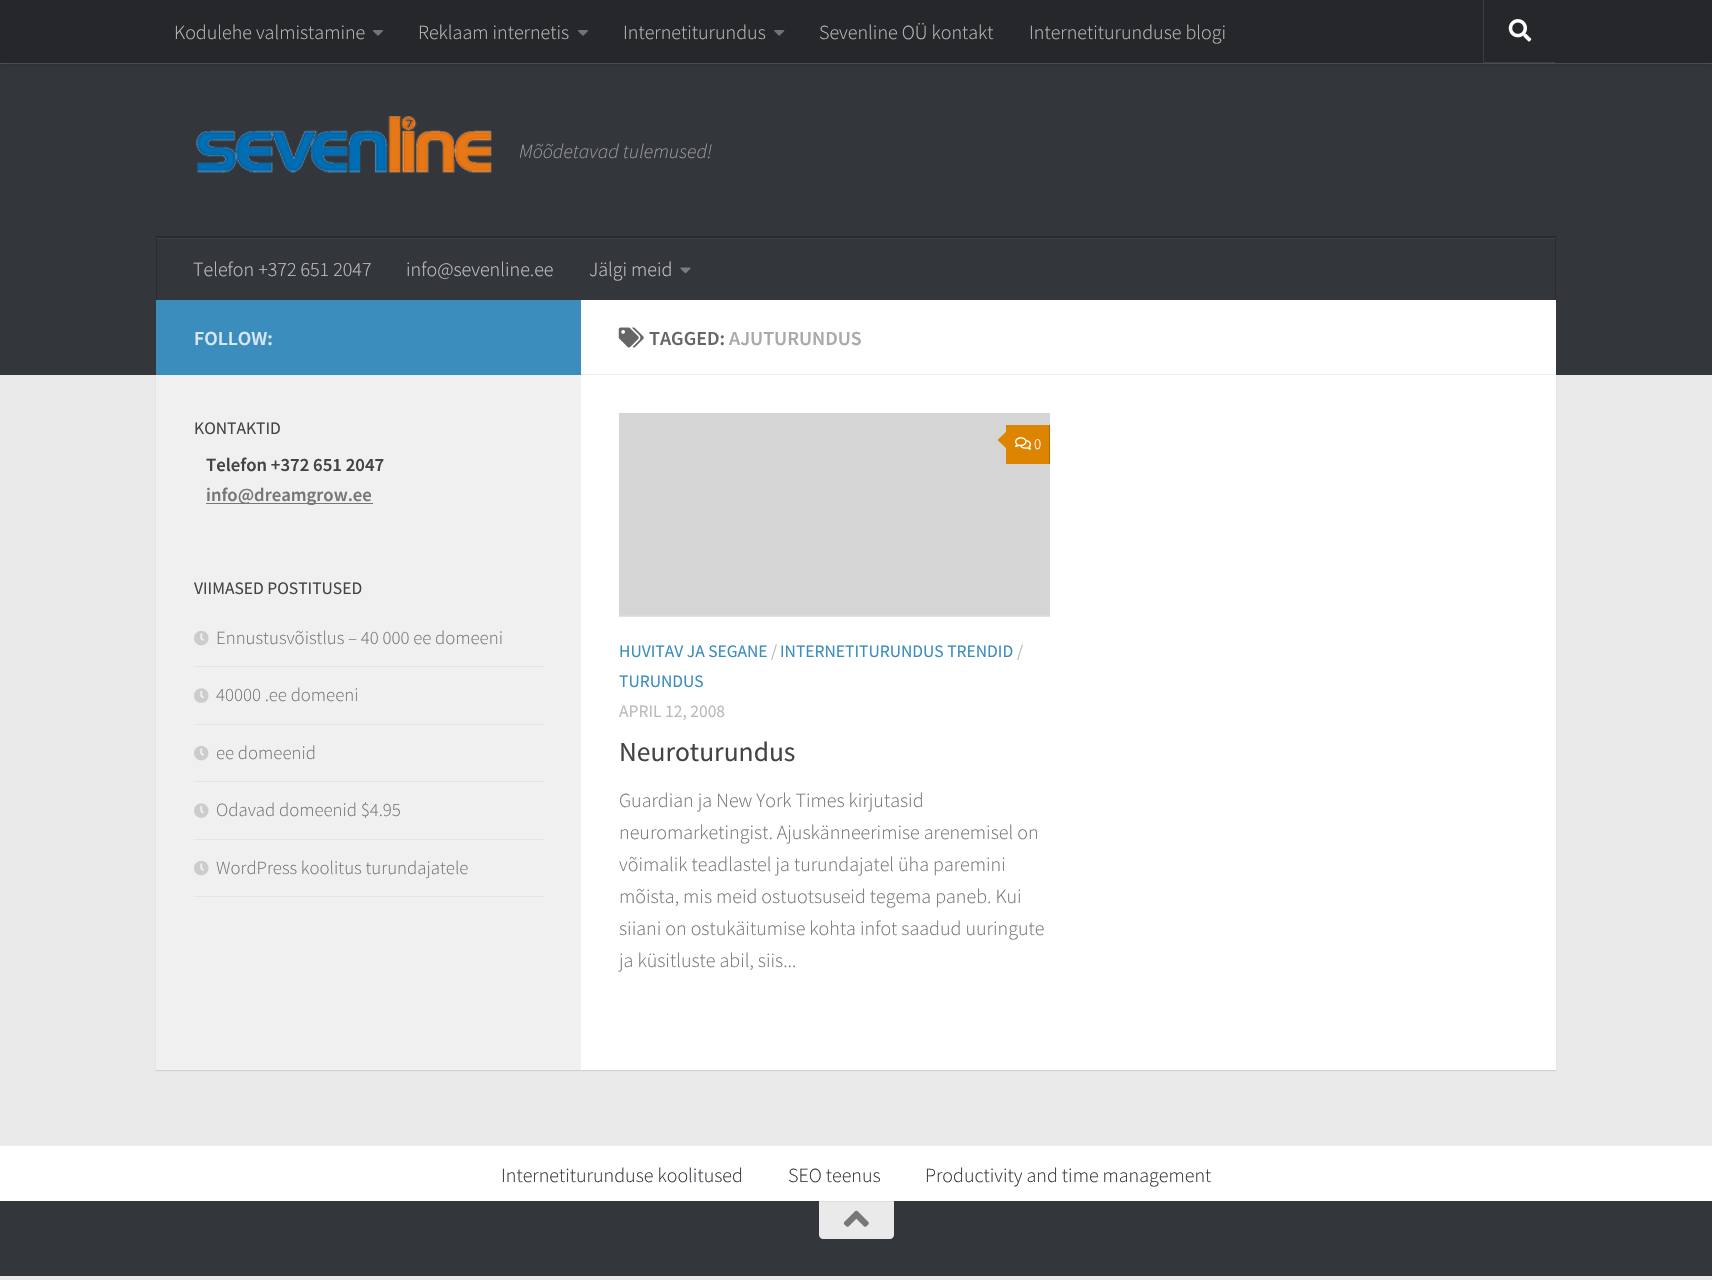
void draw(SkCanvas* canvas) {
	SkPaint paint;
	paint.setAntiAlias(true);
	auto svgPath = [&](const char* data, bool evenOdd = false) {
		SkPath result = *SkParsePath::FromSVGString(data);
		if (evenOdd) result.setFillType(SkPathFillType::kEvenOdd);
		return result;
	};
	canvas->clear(0xffeaeaea);
	paint.setColor(0x1a000000);
	paint.setMaskFilter(SkMaskFilter::MakeBlur(kNormal_SkBlurStyle, 0.5));
	canvas->drawRect(SkRect::MakeXYWH(156, 301, 1400, 770), paint);
	paint.setMaskFilter(nullptr);
	paint.setColor(0xff33363b);
	canvas->drawRect(SkRect::MakeXYWH(0, 64, 1712, 311), paint);
	paint.setColor(0xff3d4045);
	canvas->drawRect(SkRect::MakeXYWH(156, 238, 1400, 1), paint);
	paint.setColor(0xff525458);
	canvas->drawPath(svgPath("M0 62V64H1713V1H1712V62Z"), paint);
	paint.setColor(0x33000000);
	paint.setMaskFilter(SkMaskFilter::MakeBlur(kNormal_SkBlurStyle, 3));
	canvas->drawRect(SkRect::MakeXYWH(0, 0, 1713, 63), paint);
	paint.setMaskFilter(nullptr);
	paint.setColor(0xff26272b);
	canvas->drawRect(SkRect::MakeXYWH(0, 0, 1712, 63), paint);
	SkFont f1(fontMgr->matchFamilyStyle("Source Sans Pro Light", SkFontStyle(300, SkFontStyle::kNormal_Width, SkFontStyle::kUpright_Slant)), 20);
	f1.setSubpixel(true);
	paint.setColor(0xffbbbbbb);
	canvas->drawString("Kodulehe valmistamine", 174, 39, f1, paint);
	canvas->drawImageRect(SkImages::DeferredFromEncodedData(SkData::MakeFromFileName("img1.png")), SkRect::MakeXYWH(373, 30, 10, 6), SkSamplingOptions());
	canvas->drawString("Reklaam internetis", 418, 39, f1, paint);
	canvas->drawImageRect(SkImages::DeferredFromEncodedData(SkData::MakeFromFileName("img1.png")), SkRect::MakeXYWH(578, 30, 10, 6), SkSamplingOptions());
	canvas->drawString("Internetiturundus", 623, 39, f1, paint);
	canvas->drawImageRect(SkImages::DeferredFromEncodedData(SkData::MakeFromFileName("img2.png")), SkRect::MakeXYWH(774, 30, 11, 6), SkSamplingOptions());
	canvas->drawString("Sevenline OÜ kontakt", 819, 39, f1, paint);
	canvas->drawString("Internetiturunduse blogi", 1029, 39, f1, paint);
	paint.setColor(0xff3c3d40);
	canvas->drawPath(svgPath("M1483 0V63H1555V62H1484V0Z"), paint);
	canvas->drawImageRect(SkImages::DeferredFromEncodedData(SkData::MakeFromFileName("img3.png")), SkRect::MakeXYWH(1508, 19, 24, 23), SkSamplingOptions());
	canvas->drawImageRect(SkImages::DeferredFromEncodedData(SkData::MakeFromFileName("img4.png")), SkRect::MakeXYWH(196, 116, 296, 57), SkSamplingOptions());
	SkFont f2(fontMgr->matchFamilyStyle("Source Sans Pro Light", SkFontStyle(300, SkFontStyle::kNormal_Width, SkFontStyle::kItalic_Slant)), 20);
	f2.setSubpixel(true);
	paint.setColor(0xff999b9d);
	canvas->drawString("Mõõdetavad tulemused!", 519, 158, f2, paint);
	paint.setColor(0xff292b2f);
	canvas->drawPath(svgPath("M156 236V299V238H1556V236Z"), paint);
	canvas->drawRect(SkRect::MakeXYWH(1555, 238, 1, 62), paint);
	paint.setColor(0xff343639);
	canvas->drawRect(SkRect::MakeXYWH(1555, 238, 1, 1), paint);
	paint.setColor(0xff292b2f);
	canvas->drawRect(SkRect::MakeXYWH(156, 238, 1, 62), paint);
	paint.setColor(0xff343639);
	canvas->drawRect(SkRect::MakeXYWH(156, 238, 1, 1), paint);
	paint.setColor(0xffc2c3c4);
	canvas->drawString("Telefon +372 651 2047", 193, 276, f1, paint);
	canvas->drawString("info@sevenline.ee", 406, 276, f1, paint);
	canvas->drawString("Jälgi meid", 589, 276, f1, paint);
	canvas->drawImageRect(SkImages::DeferredFromEncodedData(SkData::MakeFromFileName("img5.png")), SkRect::MakeXYWH(680, 267, 11, 7), SkSamplingOptions());
	paint.setColor(0xffffffff);
	canvas->drawRect(SkRect::MakeXYWH(581, 300, 975, 770), paint);
	paint.setColor(0xff3b8dbd);
	canvas->drawRect(SkRect::MakeXYWH(156, 300, 425, 75), paint);
	SkFont f3(fontMgr->matchFamilyStyle("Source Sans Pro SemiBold", SkFontStyle(600, SkFontStyle::kNormal_Width, SkFontStyle::kUpright_Slant)), 20);
	f3.setSubpixel(true);
	paint.setColor(0xffd8e8f2);
	canvas->drawString("FOLLOW:", 194, 345, f3, paint);
	paint.setColor(0xfff0f0f0);
	canvas->drawRect(SkRect::MakeXYWH(156, 375, 425, 695), paint);
	SkFont f4(fontMgr->matchFamilyStyle("Source Sans Pro", SkFontStyle::Normal()), 17.5);
	f4.setSubpixel(true);
	paint.setColor(0xff444444);
	canvas->drawString("KONTAKTID", 194, 434, f4, paint);
	SkFont f5(fontMgr->matchFamilyStyle("Source Sans Pro SemiBold", SkFontStyle(600, SkFontStyle::kNormal_Width, SkFontStyle::kUpright_Slant)), 18.75);
	f5.setSubpixel(true);
	canvas->drawString("Telefon +372 651 2047", 206, 471, f5, paint);
	paint.setColor(0xff777777);
	canvas->drawRect(SkRect::MakeXYWH(206, 503, 167, 1), paint);
	paint.setColor(0xff767676);
	canvas->drawString("info@dreamgrow.ee", 206, 501, f5, paint);
	paint.setColor(0xff444444);
	canvas->drawString("VIIMASED POSTITUSED", 194, 594, f4, paint);
	paint.setColor(0xffe4e4e4);
	canvas->drawRect(SkRect::MakeXYWH(194, 666, 350, 1), paint);
	canvas->drawImageRect(SkImages::DeferredFromEncodedData(SkData::MakeFromFileName("img6.png")), SkRect::MakeXYWH(194, 630, 15, 16), SkSamplingOptions());
	SkFont f6(fontMgr->matchFamilyStyle("Source Sans Pro Light", SkFontStyle(300, SkFontStyle::kNormal_Width, SkFontStyle::kUpright_Slant)), 18.75);
	f6.setSubpixel(true);
	paint.setColor(0xff767676);
	canvas->drawString("Ennustusvõistlus – 40 000 ee domeeni", 216, 644, f6, paint);
	paint.setColor(0xffe4e4e4);
	canvas->drawRect(SkRect::MakeXYWH(194, 724, 350, 1), paint);
	canvas->drawImageRect(SkImages::DeferredFromEncodedData(SkData::MakeFromFileName("img7.png")), SkRect::MakeXYWH(194, 688, 15, 15), SkSamplingOptions());
	paint.setColor(0xff767676);
	canvas->drawString("40000 .ee domeeni", 216, 701, f6, paint);
	paint.setColor(0xffe4e4e4);
	canvas->drawRect(SkRect::MakeXYWH(194, 781, 350, 1), paint);
	canvas->drawImageRect(SkImages::DeferredFromEncodedData(SkData::MakeFromFileName("img6.png")), SkRect::MakeXYWH(194, 745, 15, 16), SkSamplingOptions());
	paint.setColor(0xff767676);
	canvas->drawString("ee domeenid", 216, 759, f6, paint);
	paint.setColor(0xffe4e4e4);
	canvas->drawRect(SkRect::MakeXYWH(194, 839, 350, 1), paint);
	canvas->drawImageRect(SkImages::DeferredFromEncodedData(SkData::MakeFromFileName("img7.png")), SkRect::MakeXYWH(194, 803, 15, 15), SkSamplingOptions());
	paint.setColor(0xff767676);
	canvas->drawString("Odavad domeenid $4.95", 216, 816, f6, paint);
	paint.setColor(0xffe4e4e4);
	canvas->drawRect(SkRect::MakeXYWH(194, 896, 350, 1), paint);
	canvas->drawImageRect(SkImages::DeferredFromEncodedData(SkData::MakeFromFileName("img6.png")), SkRect::MakeXYWH(194, 860, 15, 16), SkSamplingOptions());
	paint.setColor(0xff767676);
	canvas->drawString("WordPress koolitus turundajatele", 216, 874, f6, paint);
	paint.setColor(0xffeeeeee);
	canvas->drawRect(SkRect::MakeXYWH(581, 374, 975, 1), paint);
	canvas->drawImageRect(SkImages::DeferredFromEncodedData(SkData::MakeFromFileName("img8.png")), SkRect::MakeXYWH(618, 327, 26, 21), SkSamplingOptions());
	paint.setColor(0xff666666);
	canvas->drawString("TAGGED:", 649, 345, f3, paint);
	paint.setColor(0xffaaaaaa);
	canvas->drawString("AJUTURUNDUS", 729, 345, f3, paint);
	canvas->drawImageRect(SkImages::DeferredFromEncodedData(SkData::MakeFromFileName("img9.png")), SkRect::MakeXYWH(619, 413, 431, 204), SkSamplingOptions());
	paint.setColor(0xffdd8500);
	canvas->drawRect(SkRect::MakeXYWH(1006, 425, 43, 39), paint);
	paint.setColor(0xffb16a00);
	canvas->drawRect(SkRect::MakeXYWH(1049, 425, 1, 39), paint);
	paint.setColor(0xffdd8500);
	canvas->drawPath(svgPath("M1009 429V451L997.5 440Z"), paint);
	canvas->drawImageRect(SkImages::DeferredFromEncodedData(SkData::MakeFromFileName("img10.png")), SkRect::MakeXYWH(1015, 437, 17, 13), SkSamplingOptions());
	SkFont f7(fontMgr->matchFamilyStyle("Source Sans Pro Light", SkFontStyle(300, SkFontStyle::kNormal_Width, SkFontStyle::kUpright_Slant)), 15);
	f7.setSubpixel(true);
	paint.setColor(0xffffffff);
	canvas->drawString("0", 1034, 449, f7, paint);
	paint.setColor(0xff3b8dbd);
	canvas->drawString("HUVITAV JA SEGANE", 619, 657, f4, paint);
	paint.setColor(0xffbbbbbb);
	canvas->drawString("/", 771, 657, f4, paint);
	paint.setColor(0xff3b8dbd);
	canvas->drawString("INTERNETITURUNDUS TRENDID", 780, 657, f4, paint);
	paint.setColor(0xffbbbbbb);
	canvas->drawString("/", 1017, 657, f4, paint);
	paint.setColor(0xff3b8dbd);
	canvas->drawString("TURUNDUS", 619, 687, f4, paint);
	paint.setColor(0xffbbbbbb);
	canvas->drawString("APRIL 12, 2008", 619, 717, f4, paint);
	SkFont f8(fontMgr->matchFamilyStyle("Source Sans Pro", SkFontStyle::Normal()), 27.5);
	f8.setSubpixel(true);
	paint.setColor(0xff444444);
	canvas->drawString("Neuroturundus", 619, 761, f8, paint);
	paint.setColor(0xff767676);
	canvas->drawString("Guardian ja New York Times kirjutasid", 619, 807, f1, paint);
	canvas->drawString("neuromarketingist. Ajuskänneerimise arenemisel on", 619, 839, f1, paint);
	canvas->drawString("võimalik teadlastel ja turundajatel üha paremini", 619, 871, f1, paint);
	canvas->drawString("mõista, mis meid ostuotsuseid tegema paneb. Kui", 619, 903, f1, paint);
	canvas->drawString("siiani on ostukäitumise kohta infot saadud uuringute", 619, 935, f1, paint);
	canvas->drawString("ja küsitluste abil, siis...", 619, 967, f1, paint);
	paint.setColor(0xffffffff);
	canvas->drawRect(SkRect::MakeXYWH(0, 1146, 1712, 55), paint);
	paint.setColor(0xffeeeeee);
	canvas->drawRect(SkRect::MakeXYWH(0, 1145, 1712, 1), paint);
	paint.setColor(0xff33363b);
	canvas->drawString("Internetiturunduse koolitused", 501, 1182, f1, paint);
	canvas->drawString("SEO teenus", 788, 1182, f1, paint);
	canvas->drawString("Productivity and time management", 925, 1182, f1, paint);
	canvas->drawRect(SkRect::MakeXYWH(0, 1201, 1712, 75), paint);
	paint.setColor(0xffeaeaea);
	canvas->drawPath(svgPath("M819 1201H894V1235C894 1237 892 1239 890 1239H823C821 1239 819 1237 819 1235Z"), paint);
	paint.setColor(0xffdedede);
	canvas->drawRect(SkRect::MakeXYWH(819, 1201, 75, 1), paint);
	canvas->drawImageRect(SkImages::DeferredFromEncodedData(SkData::MakeFromFileName("img11.png")), SkRect::MakeXYWH(843, 1210, 26, 17), SkSamplingOptions());
}
